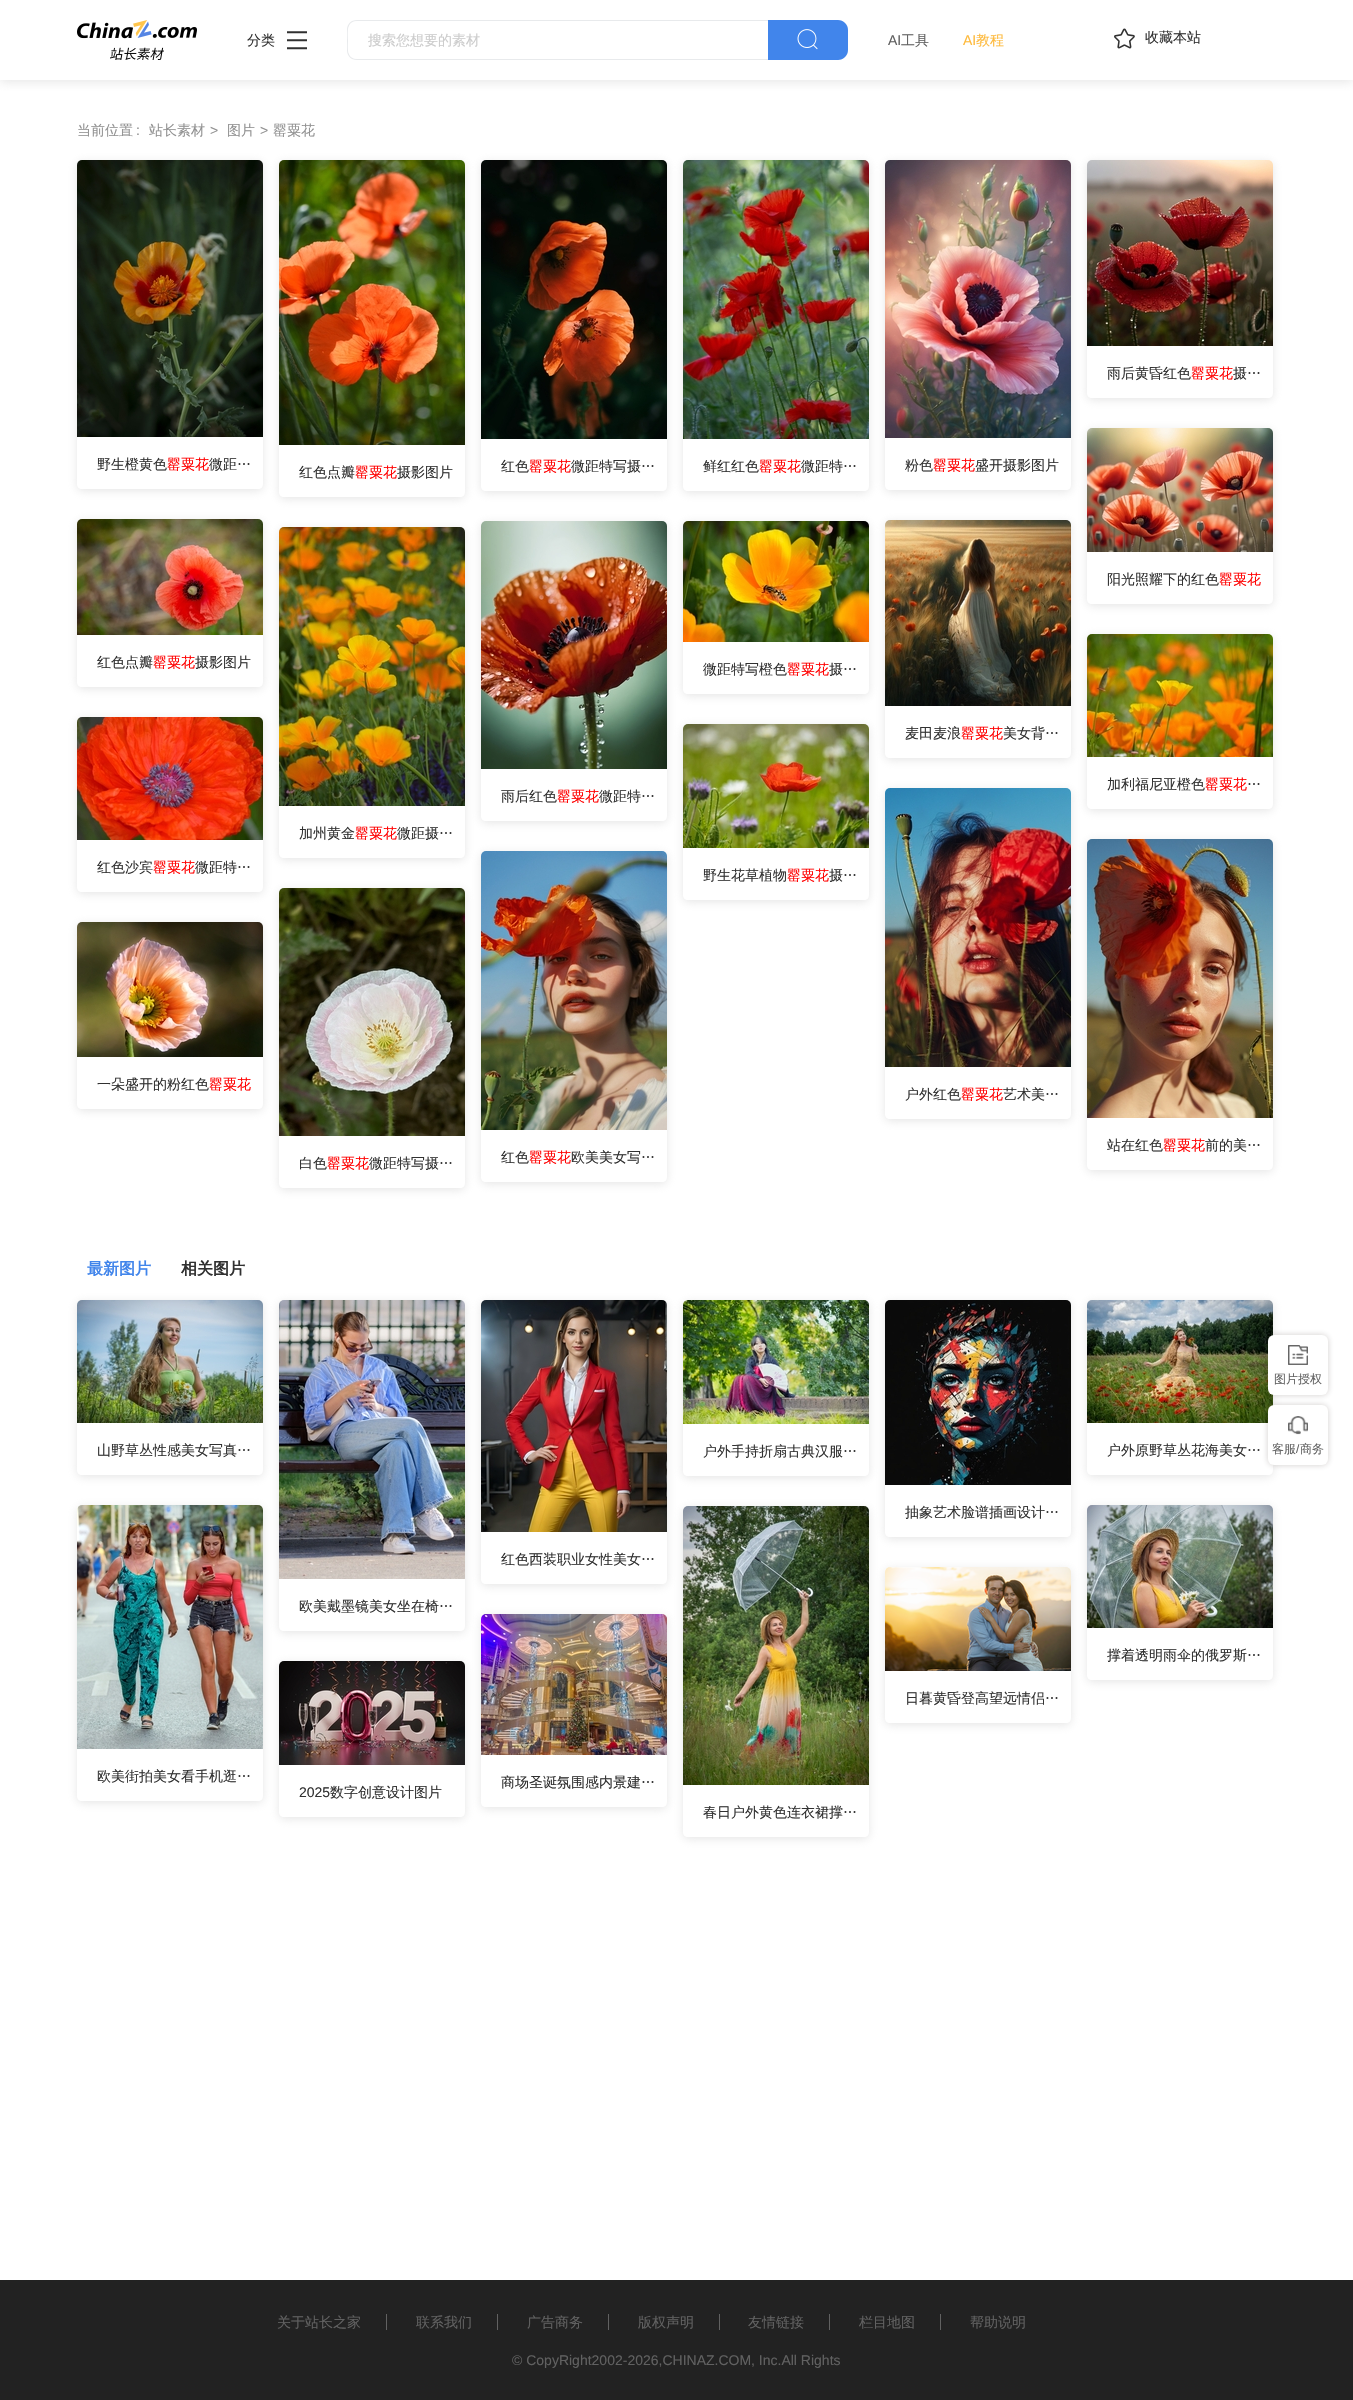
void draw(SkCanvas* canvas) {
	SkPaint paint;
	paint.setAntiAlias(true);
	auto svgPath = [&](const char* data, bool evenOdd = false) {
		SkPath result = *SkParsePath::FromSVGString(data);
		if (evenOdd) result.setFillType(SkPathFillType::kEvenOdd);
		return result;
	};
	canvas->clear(0xffffffff);
	canvas->save();
	canvas->clipRect(SkRect::MakeXYWH(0, 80, 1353, 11));
	paint.setColor(0x80cccccc);
	paint.setMaskFilter(SkMaskFilter::MakeBlur(kNormal_SkBlurStyle, 5));
	canvas->drawRect(SkRect::MakeXYWH(0, 2, 1353, 80), paint);
	paint.setMaskFilter(nullptr);
	canvas->restore();
	canvas->drawImageRect(SkImages::DeferredFromEncodedData(SkData::MakeFromFileName("img1.png")), SkRect::MakeXYWH(77, 20, 120, 40), SkSamplingOptions());
	SkFont f1(fontMgr->matchFamilyStyle("WenQuanYi Zen Hei", SkFontStyle(500, SkFontStyle::kNormal_Width, SkFontStyle::kUpright_Slant)), 14);
	f1.setSubpixel(true);
	paint.setColor(0xff313131);
	canvas->drawString("分类", 247, 45, f1, paint);
	canvas->drawImageRect(SkImages::DeferredFromEncodedData(SkData::MakeFromFileName("img2.png")), SkRect::MakeXYWH(287, 31, 20, 19), SkSamplingOptions());
	paint.setColor(0xffe8eaec);
	canvas->drawPath(svgPath("M357 20H768V60H357C351 60 347 56 347 50V30C347 24 351 20 357 20ZM357 21H768V59H357C346 59 348 47 348 40C348 33 346 21 357 21Z", true), paint);
	paint.setColor(0xffffffff);
	canvas->drawPath(svgPath("M358 21H768V59H358C352.5 59 348 54.5 348 49V31C348 25.5 352.5 21 358 21Z"), paint);
	paint.setColor(0xffcccccc);
	canvas->drawString("搜索您想要的素材", 368, 45, f1, paint);
	paint.setColor(0xff4185eb);
	canvas->drawPath(svgPath("M768 20H838C843.5 20 848 24.5 848 30V50C848 55.5 843.5 60 838 60H768Z"), paint);
	canvas->drawImageRect(SkImages::DeferredFromEncodedData(SkData::MakeFromFileName("img3.png")), SkRect::MakeXYWH(797, 29, 21, 21), SkSamplingOptions());
	SkFont f2(fontMgr->matchFamilyStyle("Liberation Sans", SkFontStyle::Normal()), 14);
	f2.setSubpixel(true);
	paint.setColor(0xff616161);
	canvas->drawString("AI", 888, 45, f2, paint);
	canvas->drawString("工具", 901, 45, f1, paint);
	paint.setColor(0xfffeba3d);
	canvas->drawString("AI", 963, 45, f2, paint);
	canvas->drawString("教程", 976, 45, f1, paint);
	canvas->drawImageRect(SkImages::DeferredFromEncodedData(SkData::MakeFromFileName("img4.png")), SkRect::MakeXYWH(1114, 28, 21, 21), SkSamplingOptions());
	paint.setColor(0xff313131);
	canvas->drawString("收藏本站", 1145, 42, f1, paint);
	paint.setColor(0xff919191);
	canvas->drawString("当前位置", 77, 135, f1, paint);
	canvas->drawString(":", 136, 135, f2, paint);
	canvas->drawString("站长素材", 149, 135, f1, paint);
	canvas->drawString(">", 210, 135, f2, paint);
	canvas->drawString("图片", 227, 135, f1, paint);
	canvas->drawString(">", 260, 135, f2, paint);
	canvas->drawString("罂粟花", 273, 135, f1, paint);
	canvas->save();
	canvas->clipPath(svgPath("M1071 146H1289V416H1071ZM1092 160H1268C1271 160 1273 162 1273 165V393C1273 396 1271 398 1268 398H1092C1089 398 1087 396 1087 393V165C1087 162 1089 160 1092 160Z", true), true);
	paint.setColor(0x80cccccc);
	paint.setMaskFilter(SkMaskFilter::MakeBlur(kNormal_SkBlurStyle, 5));
	canvas->drawRoundRect(SkRect::MakeXYWH(1087, 162, 186, 238), 5, 5, paint);
	paint.setMaskFilter(nullptr);
	canvas->restore();
	canvas->drawImageRect(SkImages::DeferredFromEncodedData(SkData::MakeFromFileName("img5.png")), SkRect::MakeXYWH(1087, 160, 186, 186), SkSamplingOptions());
	paint.setColor(0xff313131);
	canvas->drawString("雨后黄昏红色", 1107, 378, f1, paint);
	paint.setColor(0xffff0000);
	canvas->drawString("罂粟花", 1191, 378, f1, paint);
	paint.setColor(0xff313131);
	canvas->drawString("摄…", 1233, 378, f1, paint);
	canvas->save();
	canvas->clipPath(svgPath("M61 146H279V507H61ZM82 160H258C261 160 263 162 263 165V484C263 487 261 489 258 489H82C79 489 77 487 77 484V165C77 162 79 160 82 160Z", true), true);
	paint.setColor(0x80cccccc);
	paint.setMaskFilter(SkMaskFilter::MakeBlur(kNormal_SkBlurStyle, 5));
	canvas->drawRoundRect(SkRect::MakeXYWH(77, 162, 186, 329), 5, 5, paint);
	paint.setMaskFilter(nullptr);
	canvas->restore();
	canvas->drawImageRect(SkImages::DeferredFromEncodedData(SkData::MakeFromFileName("img6.png")), SkRect::MakeXYWH(77, 160, 186, 277), SkSamplingOptions());
	paint.setColor(0xff313131);
	canvas->drawString("野生橙黄色", 97, 469, f1, paint);
	paint.setColor(0xffff0000);
	canvas->drawString("罂粟花", 167, 469, f1, paint);
	paint.setColor(0xff313131);
	canvas->drawString("微距…", 209, 469, f1, paint);
	canvas->save();
	canvas->clipPath(svgPath("M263 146H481V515H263ZM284 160H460C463 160 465 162 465 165V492C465 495 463 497 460 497H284C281 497 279 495 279 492V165C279 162 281 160 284 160Z", true), true);
	paint.setColor(0x80cccccc);
	paint.setMaskFilter(SkMaskFilter::MakeBlur(kNormal_SkBlurStyle, 5));
	canvas->drawRoundRect(SkRect::MakeXYWH(279, 162, 186, 337), 5, 5, paint);
	paint.setMaskFilter(nullptr);
	canvas->restore();
	canvas->drawImageRect(SkImages::DeferredFromEncodedData(SkData::MakeFromFileName("img7.png")), SkRect::MakeXYWH(279, 160, 186, 285), SkSamplingOptions());
	paint.setColor(0xff313131);
	canvas->drawString("红色点瓣", 299, 477, f1, paint);
	paint.setColor(0xffff0000);
	canvas->drawString("罂粟花", 355, 477, f1, paint);
	paint.setColor(0xff313131);
	canvas->drawString("摄影图片", 397, 477, f1, paint);
	canvas->save();
	canvas->clipPath(svgPath("M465 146H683V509H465ZM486 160H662C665 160 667 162 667 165V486C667 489 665 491 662 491H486C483 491 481 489 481 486V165C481 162 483 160 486 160Z", true), true);
	paint.setColor(0x80cccccc);
	paint.setMaskFilter(SkMaskFilter::MakeBlur(kNormal_SkBlurStyle, 5));
	canvas->drawRoundRect(SkRect::MakeXYWH(481, 162, 186, 331), 5, 5, paint);
	paint.setMaskFilter(nullptr);
	canvas->restore();
	canvas->drawImageRect(SkImages::DeferredFromEncodedData(SkData::MakeFromFileName("img8.png")), SkRect::MakeXYWH(481, 160, 186, 279), SkSamplingOptions());
	paint.setColor(0xff313131);
	canvas->drawString("红色", 501, 471, f1, paint);
	paint.setColor(0xffff0000);
	canvas->drawString("罂粟花", 529, 471, f1, paint);
	paint.setColor(0xff313131);
	canvas->drawString("微距特写摄…", 571, 471, f1, paint);
	canvas->save();
	canvas->clipPath(svgPath("M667 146H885V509H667ZM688 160H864C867 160 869 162 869 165V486C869 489 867 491 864 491H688C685 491 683 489 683 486V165C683 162 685 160 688 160Z", true), true);
	paint.setColor(0x80cccccc);
	paint.setMaskFilter(SkMaskFilter::MakeBlur(kNormal_SkBlurStyle, 5));
	canvas->drawRoundRect(SkRect::MakeXYWH(683, 162, 186, 331), 5, 5, paint);
	paint.setMaskFilter(nullptr);
	canvas->restore();
	canvas->drawImageRect(SkImages::DeferredFromEncodedData(SkData::MakeFromFileName("img9.png")), SkRect::MakeXYWH(683, 160, 186, 279), SkSamplingOptions());
	paint.setColor(0xff313131);
	canvas->drawString("鲜红红色", 703, 471, f1, paint);
	paint.setColor(0xffff0000);
	canvas->drawString("罂粟花", 759, 471, f1, paint);
	paint.setColor(0xff313131);
	canvas->drawString("微距特…", 801, 471, f1, paint);
	canvas->save();
	canvas->clipPath(svgPath("M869 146H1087V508H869ZM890 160H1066C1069 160 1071 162 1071 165V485C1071 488 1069 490 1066 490H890C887 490 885 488 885 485V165C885 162 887 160 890 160Z", true), true);
	paint.setColor(0x80cccccc);
	paint.setMaskFilter(SkMaskFilter::MakeBlur(kNormal_SkBlurStyle, 5));
	canvas->drawRoundRect(SkRect::MakeXYWH(885, 162, 186, 330), 5, 5, paint);
	paint.setMaskFilter(nullptr);
	canvas->restore();
	canvas->drawImageRect(SkImages::DeferredFromEncodedData(SkData::MakeFromFileName("img10.png")), SkRect::MakeXYWH(885, 160, 186, 278), SkSamplingOptions());
	paint.setColor(0xff313131);
	canvas->drawString("粉色", 905, 470, f1, paint);
	paint.setColor(0xffff0000);
	canvas->drawString("罂粟花", 933, 470, f1, paint);
	paint.setColor(0xff313131);
	canvas->drawString("盛开摄影图片", 975, 470, f1, paint);
	canvas->save();
	canvas->clipPath(svgPath("M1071 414H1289V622H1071ZM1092 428H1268C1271 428 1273 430 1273 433V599C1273 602 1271 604 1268 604H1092C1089 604 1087 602 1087 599V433C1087 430 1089 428 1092 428Z", true), true);
	paint.setColor(0x80cccccc);
	paint.setMaskFilter(SkMaskFilter::MakeBlur(kNormal_SkBlurStyle, 5));
	canvas->drawRoundRect(SkRect::MakeXYWH(1087, 430, 186, 176), 5, 5, paint);
	paint.setMaskFilter(nullptr);
	canvas->restore();
	canvas->drawImageRect(SkImages::DeferredFromEncodedData(SkData::MakeFromFileName("img11.png")), SkRect::MakeXYWH(1087, 428, 186, 124), SkSamplingOptions());
	paint.setColor(0xff313131);
	canvas->drawString("阳光照耀下的红色", 1107, 584, f1, paint);
	paint.setColor(0xffff0000);
	canvas->drawString("罂粟花", 1219, 584, f1, paint);
	canvas->save();
	canvas->clipPath(svgPath("M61 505H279V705H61ZM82 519H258C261 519 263 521 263 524V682C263 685 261 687 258 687H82C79 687 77 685 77 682V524C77 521 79 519 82 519Z", true), true);
	paint.setColor(0x80cccccc);
	paint.setMaskFilter(SkMaskFilter::MakeBlur(kNormal_SkBlurStyle, 5));
	canvas->drawRoundRect(SkRect::MakeXYWH(77, 521, 186, 168), 5, 5, paint);
	paint.setMaskFilter(nullptr);
	canvas->restore();
	canvas->drawImageRect(SkImages::DeferredFromEncodedData(SkData::MakeFromFileName("img12.png")), SkRect::MakeXYWH(77, 519, 186, 116), SkSamplingOptions());
	paint.setColor(0xff313131);
	canvas->drawString("红色点瓣", 97, 667, f1, paint);
	paint.setColor(0xffff0000);
	canvas->drawString("罂粟花", 153, 667, f1, paint);
	paint.setColor(0xff313131);
	canvas->drawString("摄影图片", 195, 667, f1, paint);
	canvas->save();
	canvas->clipPath(svgPath("M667 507H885V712H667ZM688 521H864C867 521 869 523 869 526V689C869 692 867 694 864 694H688C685 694 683 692 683 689V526C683 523 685 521 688 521Z", true), true);
	paint.setColor(0x80cccccc);
	paint.setMaskFilter(SkMaskFilter::MakeBlur(kNormal_SkBlurStyle, 5));
	canvas->drawRoundRect(SkRect::MakeXYWH(683, 523, 186, 173), 5, 5, paint);
	paint.setMaskFilter(nullptr);
	canvas->restore();
	canvas->drawImageRect(SkImages::DeferredFromEncodedData(SkData::MakeFromFileName("img13.png")), SkRect::MakeXYWH(683, 521, 186, 121), SkSamplingOptions());
	paint.setColor(0xff313131);
	canvas->drawString("微距特写橙色", 703, 674, f1, paint);
	paint.setColor(0xffff0000);
	canvas->drawString("罂粟花", 787, 674, f1, paint);
	paint.setColor(0xff313131);
	canvas->drawString("摄…", 829, 674, f1, paint);
	canvas->save();
	canvas->clipPath(svgPath("M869 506H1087V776H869ZM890 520H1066C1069 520 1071 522 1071 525V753C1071 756 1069 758 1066 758H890C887 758 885 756 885 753V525C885 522 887 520 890 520Z", true), true);
	paint.setColor(0x80cccccc);
	paint.setMaskFilter(SkMaskFilter::MakeBlur(kNormal_SkBlurStyle, 5));
	canvas->drawRoundRect(SkRect::MakeXYWH(885, 522, 186, 238), 5, 5, paint);
	paint.setMaskFilter(nullptr);
	canvas->restore();
	canvas->drawImageRect(SkImages::DeferredFromEncodedData(SkData::MakeFromFileName("img14.png")), SkRect::MakeXYWH(885, 520, 186, 186), SkSamplingOptions());
	paint.setColor(0xff313131);
	canvas->drawString("麦田麦浪", 905, 738, f1, paint);
	paint.setColor(0xffff0000);
	canvas->drawString("罂粟花", 961, 738, f1, paint);
	paint.setColor(0xff313131);
	canvas->drawString("美女背…", 1003, 738, f1, paint);
	canvas->save();
	canvas->clipPath(svgPath("M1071 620H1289V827H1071ZM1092 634H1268C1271 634 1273 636 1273 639V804C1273 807 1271 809 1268 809H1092C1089 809 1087 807 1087 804V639C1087 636 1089 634 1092 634Z", true), true);
	paint.setColor(0x80cccccc);
	paint.setMaskFilter(SkMaskFilter::MakeBlur(kNormal_SkBlurStyle, 5));
	canvas->drawRoundRect(SkRect::MakeXYWH(1087, 636, 186, 175), 5, 5, paint);
	paint.setMaskFilter(nullptr);
	canvas->restore();
	canvas->drawImageRect(SkImages::DeferredFromEncodedData(SkData::MakeFromFileName("img15.png")), SkRect::MakeXYWH(1087, 634, 186, 123), SkSamplingOptions());
	paint.setColor(0xff313131);
	canvas->drawString("加利福尼亚橙色", 1107, 789, f1, paint);
	paint.setColor(0xffff0000);
	canvas->drawString("罂粟花", 1205, 789, f1, paint);
	paint.setColor(0xff313131);
	canvas->drawString("…", 1247, 789, f1, paint);
	canvas->save();
	canvas->clipPath(svgPath("M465 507H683V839H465ZM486 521H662C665 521 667 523 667 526V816C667 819 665 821 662 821H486C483 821 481 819 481 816V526C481 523 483 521 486 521Z", true), true);
	paint.setColor(0x80cccccc);
	paint.setMaskFilter(SkMaskFilter::MakeBlur(kNormal_SkBlurStyle, 5));
	canvas->drawRoundRect(SkRect::MakeXYWH(481, 523, 186, 300), 5, 5, paint);
	paint.setMaskFilter(nullptr);
	canvas->restore();
	canvas->drawImageRect(SkImages::DeferredFromEncodedData(SkData::MakeFromFileName("img16.png")), SkRect::MakeXYWH(481, 521, 186, 248), SkSamplingOptions());
	paint.setColor(0xff313131);
	canvas->drawString("雨后红色", 501, 801, f1, paint);
	paint.setColor(0xffff0000);
	canvas->drawString("罂粟花", 557, 801, f1, paint);
	paint.setColor(0xff313131);
	canvas->drawString("微距特…", 599, 801, f1, paint);
	canvas->save();
	canvas->clipPath(svgPath("M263 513H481V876H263ZM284 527H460C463 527 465 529 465 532V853C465 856 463 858 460 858H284C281 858 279 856 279 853V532C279 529 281 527 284 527Z", true), true);
	paint.setColor(0x80cccccc);
	paint.setMaskFilter(SkMaskFilter::MakeBlur(kNormal_SkBlurStyle, 5));
	canvas->drawRoundRect(SkRect::MakeXYWH(279, 529, 186, 331), 5, 5, paint);
	paint.setMaskFilter(nullptr);
	canvas->restore();
	canvas->drawImageRect(SkImages::DeferredFromEncodedData(SkData::MakeFromFileName("img17.png")), SkRect::MakeXYWH(279, 527, 186, 279), SkSamplingOptions());
	paint.setColor(0xff313131);
	canvas->drawString("加州黄金", 299, 838, f1, paint);
	paint.setColor(0xffff0000);
	canvas->drawString("罂粟花", 355, 838, f1, paint);
	paint.setColor(0xff313131);
	canvas->drawString("微距摄…", 397, 838, f1, paint);
	canvas->save();
	canvas->clipPath(svgPath("M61 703H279V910H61ZM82 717H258C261 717 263 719 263 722V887C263 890 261 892 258 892H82C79 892 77 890 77 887V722C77 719 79 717 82 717Z", true), true);
	paint.setColor(0x80cccccc);
	paint.setMaskFilter(SkMaskFilter::MakeBlur(kNormal_SkBlurStyle, 5));
	canvas->drawRoundRect(SkRect::MakeXYWH(77, 719, 186, 175), 5, 5, paint);
	paint.setMaskFilter(nullptr);
	canvas->restore();
	canvas->drawImageRect(SkImages::DeferredFromEncodedData(SkData::MakeFromFileName("img18.png")), SkRect::MakeXYWH(77, 717, 186, 123), SkSamplingOptions());
	paint.setColor(0xff313131);
	canvas->drawString("红色沙宾", 97, 872, f1, paint);
	paint.setColor(0xffff0000);
	canvas->drawString("罂粟花", 153, 872, f1, paint);
	paint.setColor(0xff313131);
	canvas->drawString("微距特…", 195, 872, f1, paint);
	canvas->save();
	canvas->clipPath(svgPath("M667 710H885V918H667ZM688 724H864C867 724 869 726 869 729V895C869 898 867 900 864 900H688C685 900 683 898 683 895V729C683 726 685 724 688 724Z", true), true);
	paint.setColor(0x80cccccc);
	paint.setMaskFilter(SkMaskFilter::MakeBlur(kNormal_SkBlurStyle, 5));
	canvas->drawRoundRect(SkRect::MakeXYWH(683, 726, 186, 176), 5, 5, paint);
	paint.setMaskFilter(nullptr);
	canvas->restore();
	canvas->drawImageRect(SkImages::DeferredFromEncodedData(SkData::MakeFromFileName("img19.png")), SkRect::MakeXYWH(683, 724, 186, 124), SkSamplingOptions());
	paint.setColor(0xff313131);
	canvas->drawString("野生花草植物", 703, 880, f1, paint);
	paint.setColor(0xffff0000);
	canvas->drawString("罂粟花", 787, 880, f1, paint);
	paint.setColor(0xff313131);
	canvas->drawString("摄…", 829, 880, f1, paint);
	canvas->save();
	canvas->clipPath(svgPath("M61 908H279V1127H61ZM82 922H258C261 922 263 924 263 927V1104C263 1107 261 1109 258 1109H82C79 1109 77 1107 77 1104V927C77 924 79 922 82 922Z", true), true);
	paint.setColor(0x80cccccc);
	paint.setMaskFilter(SkMaskFilter::MakeBlur(kNormal_SkBlurStyle, 5));
	canvas->drawRoundRect(SkRect::MakeXYWH(77, 924, 186, 187), 5, 5, paint);
	paint.setMaskFilter(nullptr);
	canvas->restore();
	canvas->drawImageRect(SkImages::DeferredFromEncodedData(SkData::MakeFromFileName("img20.png")), SkRect::MakeXYWH(77, 922, 186, 135), SkSamplingOptions());
	paint.setColor(0xff313131);
	canvas->drawString("一朵盛开的粉红色", 97, 1089, f1, paint);
	paint.setColor(0xffff0000);
	canvas->drawString("罂粟花", 209, 1089, f1, paint);
	canvas->save();
	canvas->clipPath(svgPath("M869 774H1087V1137H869ZM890 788H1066C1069 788 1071 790 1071 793V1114C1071 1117 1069 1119 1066 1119H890C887 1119 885 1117 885 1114V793C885 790 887 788 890 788Z", true), true);
	paint.setColor(0x80cccccc);
	paint.setMaskFilter(SkMaskFilter::MakeBlur(kNormal_SkBlurStyle, 5));
	canvas->drawRoundRect(SkRect::MakeXYWH(885, 790, 186, 331), 5, 5, paint);
	paint.setMaskFilter(nullptr);
	canvas->restore();
	canvas->drawImageRect(SkImages::DeferredFromEncodedData(SkData::MakeFromFileName("img21.png")), SkRect::MakeXYWH(885, 788, 186, 279), SkSamplingOptions());
	paint.setColor(0xff313131);
	canvas->drawString("户外红色", 905, 1099, f1, paint);
	paint.setColor(0xffff0000);
	canvas->drawString("罂粟花", 961, 1099, f1, paint);
	paint.setColor(0xff313131);
	canvas->drawString("艺术美…", 1003, 1099, f1, paint);
	canvas->save();
	canvas->clipPath(svgPath("M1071 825H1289V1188H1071ZM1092 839H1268C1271 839 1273 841 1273 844V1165C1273 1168 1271 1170 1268 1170H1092C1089 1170 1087 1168 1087 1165V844C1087 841 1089 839 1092 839Z", true), true);
	paint.setColor(0x80cccccc);
	paint.setMaskFilter(SkMaskFilter::MakeBlur(kNormal_SkBlurStyle, 5));
	canvas->drawRoundRect(SkRect::MakeXYWH(1087, 841, 186, 331), 5, 5, paint);
	paint.setMaskFilter(nullptr);
	canvas->restore();
	canvas->drawImageRect(SkImages::DeferredFromEncodedData(SkData::MakeFromFileName("img22.png")), SkRect::MakeXYWH(1087, 839, 186, 279), SkSamplingOptions());
	paint.setColor(0xff313131);
	canvas->drawString("站在红色", 1107, 1150, f1, paint);
	paint.setColor(0xffff0000);
	canvas->drawString("罂粟花", 1163, 1150, f1, paint);
	paint.setColor(0xff313131);
	canvas->drawString("前的美…", 1205, 1150, f1, paint);
	canvas->save();
	canvas->clipPath(svgPath("M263 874H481V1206H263ZM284 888H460C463 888 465 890 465 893V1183C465 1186 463 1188 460 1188H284C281 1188 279 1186 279 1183V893C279 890 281 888 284 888Z", true), true);
	paint.setColor(0x80cccccc);
	paint.setMaskFilter(SkMaskFilter::MakeBlur(kNormal_SkBlurStyle, 5));
	canvas->drawRoundRect(SkRect::MakeXYWH(279, 890, 186, 300), 5, 5, paint);
	paint.setMaskFilter(nullptr);
	canvas->restore();
	canvas->drawImageRect(SkImages::DeferredFromEncodedData(SkData::MakeFromFileName("img23.png")), SkRect::MakeXYWH(279, 888, 186, 248), SkSamplingOptions());
	paint.setColor(0xff313131);
	canvas->drawString("白色", 299, 1168, f1, paint);
	paint.setColor(0xffff0000);
	canvas->drawString("罂粟花", 327, 1168, f1, paint);
	paint.setColor(0xff313131);
	canvas->drawString("微距特写摄…", 369, 1168, f1, paint);
	canvas->save();
	canvas->clipPath(svgPath("M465 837H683V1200H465ZM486 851H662C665 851 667 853 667 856V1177C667 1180 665 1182 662 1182H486C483 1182 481 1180 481 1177V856C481 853 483 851 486 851Z", true), true);
	paint.setColor(0x80cccccc);
	paint.setMaskFilter(SkMaskFilter::MakeBlur(kNormal_SkBlurStyle, 5));
	canvas->drawRoundRect(SkRect::MakeXYWH(481, 853, 186, 331), 5, 5, paint);
	paint.setMaskFilter(nullptr);
	canvas->restore();
	canvas->drawImageRect(SkImages::DeferredFromEncodedData(SkData::MakeFromFileName("img24.png")), SkRect::MakeXYWH(481, 851, 186, 279), SkSamplingOptions());
	paint.setColor(0xff313131);
	canvas->drawString("红色", 501, 1162, f1, paint);
	paint.setColor(0xffff0000);
	canvas->drawString("罂粟花", 529, 1162, f1, paint);
	paint.setColor(0xff313131);
	canvas->drawString("欧美美女写…", 571, 1162, f1, paint);
	SkFont f3(fontMgr->matchFamilyStyle("WenQuanYi Zen Hei", SkFontStyle::Bold()), 16);
	f3.setSubpixel(true);
	paint.setColor(0xff4185eb);
	canvas->drawString("最新图片", 87, 1274, f3, paint);
	paint.setColor(0xff313131);
	canvas->drawString("相关图片", 181, 1274, f3, paint);
	canvas->save();
	canvas->clipPath(svgPath("M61 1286H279V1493H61ZM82 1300H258C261 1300 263 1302 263 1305V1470C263 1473 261 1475 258 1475H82C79 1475 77 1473 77 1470V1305C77 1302 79 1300 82 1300Z", true), true);
	paint.setColor(0x80cccccc);
	paint.setMaskFilter(SkMaskFilter::MakeBlur(kNormal_SkBlurStyle, 5));
	canvas->drawRoundRect(SkRect::MakeXYWH(77, 1302, 186, 175), 5, 5, paint);
	paint.setMaskFilter(nullptr);
	canvas->restore();
	canvas->drawImageRect(SkImages::DeferredFromEncodedData(SkData::MakeFromFileName("img25.png")), SkRect::MakeXYWH(77, 1300, 186, 123), SkSamplingOptions());
	paint.setColor(0xff313131);
	canvas->drawString("山野草丛性感美女写真…", 97, 1455, f1, paint);
	canvas->save();
	canvas->clipPath(svgPath("M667 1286H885V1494H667ZM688 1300H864C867 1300 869 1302 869 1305V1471C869 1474 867 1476 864 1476H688C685 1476 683 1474 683 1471V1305C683 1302 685 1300 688 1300Z", true), true);
	paint.setColor(0x80cccccc);
	paint.setMaskFilter(SkMaskFilter::MakeBlur(kNormal_SkBlurStyle, 5));
	canvas->drawRoundRect(SkRect::MakeXYWH(683, 1302, 186, 176), 5, 5, paint);
	paint.setMaskFilter(nullptr);
	canvas->restore();
	canvas->drawImageRect(SkImages::DeferredFromEncodedData(SkData::MakeFromFileName("img26.png")), SkRect::MakeXYWH(683, 1300, 186, 124), SkSamplingOptions());
	paint.setColor(0xff313131);
	canvas->drawString("户外手持折扇古典汉服…", 703, 1456, f1, paint);
	canvas->save();
	canvas->clipPath(svgPath("M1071 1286H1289V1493H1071ZM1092 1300H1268C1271 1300 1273 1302 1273 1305V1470C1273 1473 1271 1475 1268 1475H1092C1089 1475 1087 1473 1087 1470V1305C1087 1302 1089 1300 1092 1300Z", true), true);
	paint.setColor(0x80cccccc);
	paint.setMaskFilter(SkMaskFilter::MakeBlur(kNormal_SkBlurStyle, 5));
	canvas->drawRoundRect(SkRect::MakeXYWH(1087, 1302, 186, 175), 5, 5, paint);
	paint.setMaskFilter(nullptr);
	canvas->restore();
	canvas->drawImageRect(SkImages::DeferredFromEncodedData(SkData::MakeFromFileName("img27.png")), SkRect::MakeXYWH(1087, 1300, 186, 123), SkSamplingOptions());
	paint.setColor(0xff313131);
	canvas->drawString("户外原野草丛花海美女…", 1107, 1455, f1, paint);
	canvas->save();
	canvas->clipPath(svgPath("M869 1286H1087V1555H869ZM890 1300H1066C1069 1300 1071 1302 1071 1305V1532C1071 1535 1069 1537 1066 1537H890C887 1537 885 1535 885 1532V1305C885 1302 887 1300 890 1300Z", true), true);
	paint.setColor(0x80cccccc);
	paint.setMaskFilter(SkMaskFilter::MakeBlur(kNormal_SkBlurStyle, 5));
	canvas->drawRoundRect(SkRect::MakeXYWH(885, 1302, 186, 237), 5, 5, paint);
	paint.setMaskFilter(nullptr);
	canvas->restore();
	canvas->drawImageRect(SkImages::DeferredFromEncodedData(SkData::MakeFromFileName("img28.png")), SkRect::MakeXYWH(885, 1300, 186, 185), SkSamplingOptions());
	paint.setColor(0xff313131);
	canvas->drawString("抽象艺术脸谱插画设计…", 905, 1517, f1, paint);
	canvas->save();
	canvas->clipPath(svgPath("M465 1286H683V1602H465ZM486 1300H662C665 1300 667 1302 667 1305V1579C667 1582 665 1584 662 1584H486C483 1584 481 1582 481 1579V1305C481 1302 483 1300 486 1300Z", true), true);
	paint.setColor(0x80cccccc);
	paint.setMaskFilter(SkMaskFilter::MakeBlur(kNormal_SkBlurStyle, 5));
	canvas->drawRoundRect(SkRect::MakeXYWH(481, 1302, 186, 284), 5, 5, paint);
	paint.setMaskFilter(nullptr);
	canvas->restore();
	canvas->drawImageRect(SkImages::DeferredFromEncodedData(SkData::MakeFromFileName("img29.png")), SkRect::MakeXYWH(481, 1300, 186, 232), SkSamplingOptions());
	paint.setColor(0xff313131);
	canvas->drawString("红色西装职业女性美女…", 501, 1564, f1, paint);
	canvas->save();
	canvas->clipPath(svgPath("M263 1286H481V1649H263ZM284 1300H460C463 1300 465 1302 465 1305V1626C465 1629 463 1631 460 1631H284C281 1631 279 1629 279 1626V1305C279 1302 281 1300 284 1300Z", true), true);
	paint.setColor(0x80cccccc);
	paint.setMaskFilter(SkMaskFilter::MakeBlur(kNormal_SkBlurStyle, 5));
	canvas->drawRoundRect(SkRect::MakeXYWH(279, 1302, 186, 331), 5, 5, paint);
	paint.setMaskFilter(nullptr);
	canvas->restore();
	canvas->drawImageRect(SkImages::DeferredFromEncodedData(SkData::MakeFromFileName("img30.png")), SkRect::MakeXYWH(279, 1300, 186, 279), SkSamplingOptions());
	paint.setColor(0xff313131);
	canvas->drawString("欧美戴墨镜美女坐在椅…", 299, 1611, f1, paint);
	canvas->save();
	canvas->clipPath(svgPath("M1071 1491H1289V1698H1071ZM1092 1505H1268C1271 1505 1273 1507 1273 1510V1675C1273 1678 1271 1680 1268 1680H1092C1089 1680 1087 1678 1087 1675V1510C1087 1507 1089 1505 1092 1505Z", true), true);
	paint.setColor(0x80cccccc);
	paint.setMaskFilter(SkMaskFilter::MakeBlur(kNormal_SkBlurStyle, 5));
	canvas->drawRoundRect(SkRect::MakeXYWH(1087, 1507, 186, 175), 5, 5, paint);
	paint.setMaskFilter(nullptr);
	canvas->restore();
	canvas->drawImageRect(SkImages::DeferredFromEncodedData(SkData::MakeFromFileName("img31.png")), SkRect::MakeXYWH(1087, 1505, 186, 123), SkSamplingOptions());
	paint.setColor(0xff313131);
	canvas->drawString("撑着透明雨伞的俄罗斯…", 1107, 1660, f1, paint);
	canvas->save();
	canvas->clipPath(svgPath("M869 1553H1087V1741H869ZM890 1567H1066C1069 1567 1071 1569 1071 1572V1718C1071 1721 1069 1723 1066 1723H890C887 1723 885 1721 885 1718V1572C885 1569 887 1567 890 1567Z", true), true);
	paint.setColor(0x80cccccc);
	paint.setMaskFilter(SkMaskFilter::MakeBlur(kNormal_SkBlurStyle, 5));
	canvas->drawRoundRect(SkRect::MakeXYWH(885, 1569, 186, 156), 5, 5, paint);
	paint.setMaskFilter(nullptr);
	canvas->restore();
	canvas->drawImageRect(SkImages::DeferredFromEncodedData(SkData::MakeFromFileName("img32.png")), SkRect::MakeXYWH(885, 1567, 186, 104), SkSamplingOptions());
	paint.setColor(0xff313131);
	canvas->drawString("日暮黄昏登高望远情侣…", 905, 1703, f1, paint);
	canvas->save();
	canvas->clipPath(svgPath("M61 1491H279V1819H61ZM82 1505H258C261 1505 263 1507 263 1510V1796C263 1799 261 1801 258 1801H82C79 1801 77 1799 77 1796V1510C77 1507 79 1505 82 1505Z", true), true);
	paint.setColor(0x80cccccc);
	paint.setMaskFilter(SkMaskFilter::MakeBlur(kNormal_SkBlurStyle, 5));
	canvas->drawRoundRect(SkRect::MakeXYWH(77, 1507, 186, 296), 5, 5, paint);
	paint.setMaskFilter(nullptr);
	canvas->restore();
	canvas->drawImageRect(SkImages::DeferredFromEncodedData(SkData::MakeFromFileName("img33.png")), SkRect::MakeXYWH(77, 1505, 186, 244), SkSamplingOptions());
	paint.setColor(0xff313131);
	canvas->drawString("欧美街拍美女看手机逛…", 97, 1781, f1, paint);
	canvas->save();
	canvas->clipPath(svgPath("M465 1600H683V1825H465ZM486 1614H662C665 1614 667 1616 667 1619V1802C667 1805 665 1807 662 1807H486C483 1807 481 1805 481 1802V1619C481 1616 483 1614 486 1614Z", true), true);
	paint.setColor(0x80cccccc);
	paint.setMaskFilter(SkMaskFilter::MakeBlur(kNormal_SkBlurStyle, 5));
	canvas->drawRoundRect(SkRect::MakeXYWH(481, 1616, 186, 193), 5, 5, paint);
	paint.setMaskFilter(nullptr);
	canvas->restore();
	canvas->drawImageRect(SkImages::DeferredFromEncodedData(SkData::MakeFromFileName("img34.png")), SkRect::MakeXYWH(481, 1614, 186, 141), SkSamplingOptions());
	paint.setColor(0xff313131);
	canvas->drawString("商场圣诞氛围感内景建…", 501, 1787, f1, paint);
	canvas->save();
	canvas->clipPath(svgPath("M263 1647H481V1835H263ZM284 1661H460C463 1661 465 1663 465 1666V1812C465 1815 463 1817 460 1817H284C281 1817 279 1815 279 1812V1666C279 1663 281 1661 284 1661Z", true), true);
	paint.setColor(0x80cccccc);
	paint.setMaskFilter(SkMaskFilter::MakeBlur(kNormal_SkBlurStyle, 5));
	canvas->drawRoundRect(SkRect::MakeXYWH(279, 1663, 186, 156), 5, 5, paint);
	paint.setMaskFilter(nullptr);
	canvas->restore();
	canvas->drawImageRect(SkImages::DeferredFromEncodedData(SkData::MakeFromFileName("img35.png")), SkRect::MakeXYWH(279, 1661, 186, 104), SkSamplingOptions());
	paint.setColor(0xff313131);
	canvas->drawString("2025", 299, 1797, f2, paint);
	canvas->drawString("数字创意设计图片", 330, 1797, f1, paint);
	canvas->save();
	canvas->clipPath(svgPath("M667 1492H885V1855H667ZM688 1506H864C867 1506 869 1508 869 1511V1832C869 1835 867 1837 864 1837H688C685 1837 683 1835 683 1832V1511C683 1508 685 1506 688 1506Z", true), true);
	paint.setColor(0x80cccccc);
	paint.setMaskFilter(SkMaskFilter::MakeBlur(kNormal_SkBlurStyle, 5));
	canvas->drawRoundRect(SkRect::MakeXYWH(683, 1508, 186, 331), 5, 5, paint);
	paint.setMaskFilter(nullptr);
	canvas->restore();
	canvas->drawImageRect(SkImages::DeferredFromEncodedData(SkData::MakeFromFileName("img36.png")), SkRect::MakeXYWH(683, 1506, 186, 279), SkSamplingOptions());
	paint.setColor(0xff313131);
	canvas->drawString("春日户外黄色连衣裙撑…", 703, 1817, f1, paint);
	paint.setColor(0x33200f0a);
	paint.setMaskFilter(SkMaskFilter::MakeBlur(kNormal_SkBlurStyle, 3));
	canvas->drawRoundRect(SkRect::MakeXYWH(1268, 1335, 60, 60), 6, 6, paint);
	paint.setMaskFilter(nullptr);
	paint.setColor(0xffffffff);
	canvas->drawRoundRect(SkRect::MakeXYWH(1268, 1335, 60, 60), 6, 6, paint);
	canvas->drawImageRect(SkImages::DeferredFromEncodedData(SkData::MakeFromFileName("img37.png")), SkRect::MakeXYWH(1288, 1345, 20, 20), SkSamplingOptions());
	SkFont f4(fontMgr->matchFamilyStyle("WenQuanYi Zen Hei", SkFontStyle(500, SkFontStyle::kNormal_Width, SkFontStyle::kUpright_Slant)), 12);
	f4.setSubpixel(true);
	paint.setColor(0xff616161);
	canvas->drawString("图片授权", 1274, 1383, f4, paint);
	paint.setColor(0x33200f0a);
	paint.setMaskFilter(SkMaskFilter::MakeBlur(kNormal_SkBlurStyle, 3));
	canvas->drawRoundRect(SkRect::MakeXYWH(1268, 1405, 60, 60), 6, 6, paint);
	paint.setMaskFilter(nullptr);
	paint.setColor(0xffffffff);
	canvas->drawRoundRect(SkRect::MakeXYWH(1268, 1405, 60, 60), 6, 6, paint);
	canvas->drawImageRect(SkImages::DeferredFromEncodedData(SkData::MakeFromFileName("img38.png")), SkRect::MakeXYWH(1288, 1416, 20, 19), SkSamplingOptions());
	paint.setColor(0xff616161);
	canvas->drawString("客服", 1272, 1453, f4, paint);
	SkFont f5(fontMgr->matchFamilyStyle("Liberation Sans", SkFontStyle::Normal()), 12);
	f5.setSubpixel(true);
	canvas->drawString("/", 1296, 1453, f5, paint);
	canvas->drawString("商务", 1300, 1453, f4, paint);
	paint.setColor(0xff222222);
	canvas->drawRect(SkRect::MakeXYWH(0, 2280, 1353, 120), paint);
	paint.setColor(0xff616161);
	canvas->drawString("关于站长之家", 277, 2327, f1, paint);
	canvas->drawRect(SkRect::MakeXYWH(386, 2314, 1, 16), paint);
	canvas->drawString("联系我们", 416, 2327, f1, paint);
	canvas->drawRect(SkRect::MakeXYWH(497, 2314, 1, 16), paint);
	canvas->drawString("广告商务", 527, 2327, f1, paint);
	canvas->drawRect(SkRect::MakeXYWH(608, 2314, 1, 16), paint);
	canvas->drawString("版权声明", 638, 2327, f1, paint);
	canvas->drawRect(SkRect::MakeXYWH(719, 2314, 1, 16), paint);
	canvas->drawString("友情链接", 748, 2327, f1, paint);
	canvas->drawRect(SkRect::MakeXYWH(829, 2314, 1, 16), paint);
	canvas->drawString("栏目地图", 859, 2327, f1, paint);
	canvas->drawRect(SkRect::MakeXYWH(940, 2314, 1, 16), paint);
	canvas->drawString("帮助说明", 970, 2327, f1, paint);
	canvas->drawString("© CopyRight2002-2026,CHINAZ.COM, Inc.All Rights", 512, 2365, f2, paint);
}
